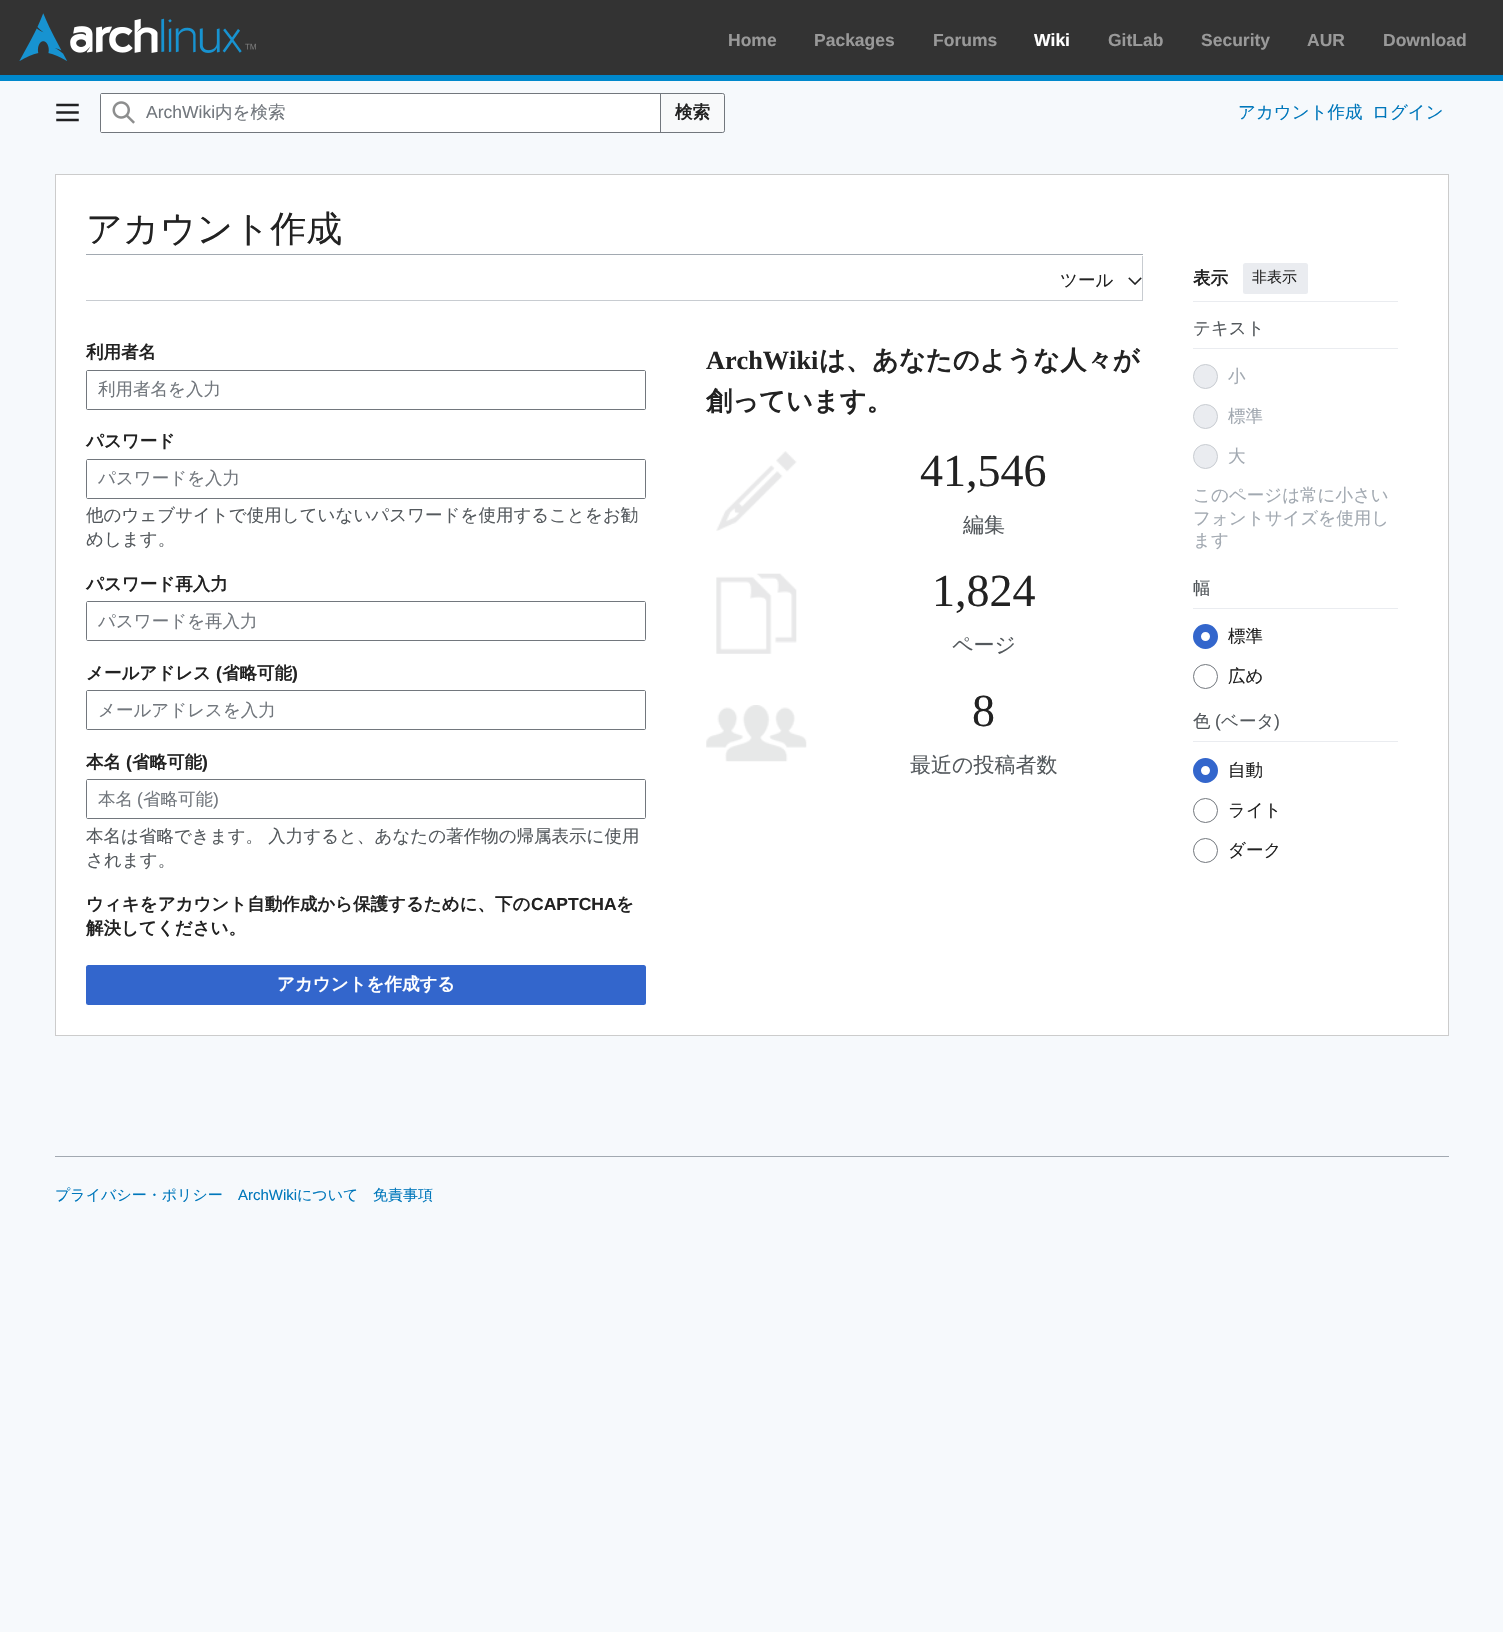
void draw(SkCanvas* canvas) {
	SkPaint paint;
	paint.setAntiAlias(true);
	auto svgPath = [&](const char* data, bool evenOdd = false) {
		SkPath result = *SkParsePath::FromSVGString(data);
		if (evenOdd) result.setFillType(SkPathFillType::kEvenOdd);
		return result;
	};
	canvas->clear(0xfff6f9fc);
	paint.setColor(0xff333333);
	canvas->drawRect(SkRect::MakeXYWH(0, 0, 1503, 75), paint);
	paint.setColor(0xff0088cc);
	canvas->drawRect(SkRect::MakeXYWH(0, 75, 1503, 6), paint);
	canvas->drawImageRect(SkImages::DeferredFromEncodedData(SkData::MakeFromFileName("img1.png")), SkRect::MakeXYWH(19, 13, 237, 48), SkSamplingOptions());
	SkFont f1(fontMgr->matchFamilyStyle("Liberation Sans", SkFontStyle::Bold()), 17.5);
	f1.setSubpixel(true);
	paint.setColor(0xff999999);
	canvas->drawString("Home", 728, 46, f1, paint);
	canvas->drawString("Packages", 814, 46, f1, paint);
	canvas->drawString("Forums", 933, 46, f1, paint);
	paint.setColor(0xffffffff);
	canvas->drawString("Wiki", 1034, 46, f1, paint);
	paint.setColor(0xff999999);
	canvas->drawString("GitLab", 1108, 46, f1, paint);
	canvas->drawString("Security", 1201, 46, f1, paint);
	canvas->drawString("AUR", 1307, 46, f1, paint);
	canvas->drawString("Download", 1383, 46, f1, paint);
	canvas->drawImageRect(SkImages::DeferredFromEncodedData(SkData::MakeFromFileName("img2.png")), SkRect::MakeXYWH(56, 103, 23, 19), SkSamplingOptions());
	paint.setStroke(true);
	paint.setStrokeWidth(1);
	paint.setColor(0xffa2a9b1);
	canvas->drawRoundRect(SkRect::MakeXYWH(100.5, 93.5, 624, 39), 2, 2, paint);
	paint.setStroke(false);
	paint.setColor(0xfff8f9fa);
	canvas->drawPath(svgPath("M660.5 93.5H722.5C723.5 93.5 724.5 94.5 724.5 95.5V130.5C724.5 131.5 723.5 132.5 722.5 132.5H660.5Z"), paint);
	paint.setStroke(true);
	paint.setColor(0xff72777d);
	canvas->drawPath(svgPath("M660.5 93.5H722.5C723.5 93.5 724.5 94.5 724.5 95.5V130.5C724.5 131.5 723.5 132.5 722.5 132.5H660.5Z"), paint);
	paint.setStroke(false);
	paint.setColor(0xffffffff);
	canvas->drawPath(svgPath("M102.5 93H661V133H102.5C101 133 100 132 100 130.5V95.5C100 94 101 93 102.5 93Z"), paint);
	paint.setColor(0xff72777d);
	canvas->drawPath(svgPath("M102 93C101 93 100 94 100 96V130C100 132 101 133 102 133H661V93ZM101 94V132H660V94Z", true), paint);
	canvas->drawImageRect(SkImages::DeferredFromEncodedData(SkData::MakeFromFileName("img3.png")), SkRect::MakeXYWH(112, 101, 23, 23), SkSamplingOptions());
	SkFont f2(fontMgr->matchFamilyStyle("Liberation Sans", SkFontStyle::Normal()), 17.5);
	f2.setSubpixel(true);
	canvas->drawString("ArchWiki", 146, 118, f2, paint);
	SkFont f3(fontMgr->matchFamilyStyle("WenQuanYi Zen Hei", SkFontStyle(500, SkFontStyle::kNormal_Width, SkFontStyle::kUpright_Slant)), 17.5);
	f3.setSubpixel(true);
	canvas->drawString("内を検索", 215, 118, f3, paint);
	SkFont f4(fontMgr->matchFamilyStyle("WenQuanYi Zen Hei", SkFontStyle::Bold()), 17.5);
	f4.setSubpixel(true);
	paint.setColor(0xff222222);
	canvas->drawString("検索", 675, 118, f4, paint);
	paint.setColor(0xff0077bb);
	canvas->drawString("アカウント作成", 1238, 118, f3, paint);
	canvas->drawString("ログイン", 1372, 118, f3, paint);
	paint.setColor(0xffffffff);
	canvas->drawRect(SkRect::MakeXYWH(55.5, 174.5, 1393, 861), paint);
	paint.setStroke(true);
	paint.setColor(0xffcccccc);
	canvas->drawRect(SkRect::MakeXYWH(55.5, 174.5, 1393, 861), paint);
	SkFont f5(fontMgr->matchFamilyStyle("WenQuanYi Zen Hei", SkFontStyle(500, SkFontStyle::kNormal_Width, SkFontStyle::kUpright_Slant)), 36);
	f5.setSubpixel(true);
	paint.setStroke(false);
	paint.setColor(0xff222222);
	canvas->drawString("アカウント作成", 86, 241, f5, paint);
	paint.setColor(0xffa2a9b1);
	canvas->drawRect(SkRect::MakeXYWH(86, 254, 1057, 1), paint);
	paint.setColor(0xffc8ccd1);
	canvas->drawPath(svgPath("M86 256V301H1143V256H1142V300H86Z"), paint);
	paint.setColor(0xff222222);
	canvas->drawString("ツール", 1060, 286, f3, paint);
	canvas->drawImageRect(SkImages::DeferredFromEncodedData(SkData::MakeFromFileName("img4.png")), SkRect::MakeXYWH(1128, 277, 14, 8), SkSamplingOptions());
	paint.setColor(0xffeaecf0);
	canvas->drawRect(SkRect::MakeXYWH(1193, 301, 205, 1), paint);
	paint.setColor(0xff222222);
	canvas->drawString("表示", 1193, 284, f4, paint);
	paint.setColor(0xffeaecf0);
	canvas->drawRoundRect(SkRect::MakeXYWH(1243, 263, 65, 31), 2.5, 2.5, paint);
	SkFont f6(fontMgr->matchFamilyStyle("WenQuanYi Zen Hei", SkFontStyle(500, SkFontStyle::kNormal_Width, SkFontStyle::kUpright_Slant)), 15);
	f6.setSubpixel(true);
	paint.setColor(0xff222222);
	canvas->drawString("非表示", 1252, 282, f6, paint);
	paint.setColor(0xffeaecf0);
	canvas->drawRect(SkRect::MakeXYWH(1193, 348, 205, 1), paint);
	paint.setColor(0xff54595d);
	canvas->drawString("テキスト", 1193, 334, f3, paint);
	paint.setColor(0xffeaecf0);
	canvas->drawCircle(1205.5, 376.5, 12, paint);
	paint.setStroke(true);
	paint.setColor(0xffc8ccd1);
	canvas->drawCircle(1205.5, 376.5, 12, paint);
	paint.setStroke(false);
	paint.setColor(0xffa2a9b1);
	canvas->drawString("小", 1228, 382, f3, paint);
	paint.setColor(0xffeaecf0);
	canvas->drawCircle(1205.5, 416.5, 12, paint);
	paint.setStroke(true);
	paint.setColor(0xffc8ccd1);
	canvas->drawCircle(1205.5, 416.5, 12, paint);
	paint.setStroke(false);
	paint.setColor(0xffa2a9b1);
	canvas->drawString("標準", 1228, 422, f3, paint);
	paint.setColor(0xffeaecf0);
	canvas->drawCircle(1205.5, 456.5, 12, paint);
	paint.setStroke(true);
	paint.setColor(0xffc8ccd1);
	canvas->drawCircle(1205.5, 456.5, 12, paint);
	paint.setStroke(false);
	paint.setColor(0xffa2a9b1);
	canvas->drawString("大", 1228, 462, f3, paint);
	canvas->drawString("このページは常に小さい", 1193, 501, f3, paint);
	canvas->drawString("フォントサイズを使用し", 1193, 524, f3, paint);
	canvas->drawString("ます", 1193, 546, f3, paint);
	paint.setColor(0xffeaecf0);
	canvas->drawRect(SkRect::MakeXYWH(1193, 608, 205, 1), paint);
	paint.setColor(0xff54595d);
	canvas->drawString("幅", 1193, 594, f3, paint);
	paint.setStroke(true);
	paint.setStrokeWidth(8);
	paint.setColor(0xff3366cc);
	canvas->drawCircle(1205.5, 636.5, 8.5, paint);
	paint.setStroke(false);
	paint.setColor(0xff222222);
	canvas->drawString("標準", 1228, 642, f3, paint);
	paint.setStroke(true);
	paint.setStrokeWidth(1);
	paint.setColor(0xff72777d);
	canvas->drawCircle(1205.5, 676.5, 12, paint);
	paint.setStroke(false);
	paint.setColor(0xff222222);
	canvas->drawString("広め", 1228, 682, f3, paint);
	paint.setColor(0xffeaecf0);
	canvas->drawRect(SkRect::MakeXYWH(1193, 741, 205, 1), paint);
	paint.setColor(0xff54595d);
	canvas->drawString("色", 1193, 727, f3, paint);
	canvas->drawString("(", 1215, 727, f2, paint);
	canvas->drawString("ベータ", 1221, 727, f3, paint);
	canvas->drawString(")", 1274, 727, f2, paint);
	paint.setStroke(true);
	paint.setStrokeWidth(8);
	paint.setColor(0xff3366cc);
	canvas->drawCircle(1205.5, 770.5, 8.5, paint);
	paint.setStroke(false);
	paint.setColor(0xff222222);
	canvas->drawString("自動", 1228, 776, f3, paint);
	paint.setStroke(true);
	paint.setStrokeWidth(1);
	paint.setColor(0xff72777d);
	canvas->drawCircle(1205.5, 810.5, 12, paint);
	paint.setStroke(false);
	paint.setColor(0xff222222);
	canvas->drawString("ライト", 1228, 816, f3, paint);
	paint.setStroke(true);
	paint.setColor(0xff72777d);
	canvas->drawCircle(1205.5, 850.5, 12, paint);
	paint.setStroke(false);
	paint.setColor(0xff222222);
	canvas->drawString("ダーク", 1228, 856, f3, paint);
	canvas->drawString("利用者名", 86, 358, f4, paint);
	paint.setColor(0xff72777d);
	canvas->drawPath(svgPath("M88 370C87 370 86 371 86 372V408C86 409 87 410 88 410H644C645 410 646 409 646 408V372C646 371 645 370 644 370ZM87 371V409H645V371Z", true), paint);
	canvas->drawString("利用者名を入力", 98, 395, f3, paint);
	paint.setColor(0xff222222);
	canvas->drawString("パスワード", 86, 447, f4, paint);
	paint.setColor(0xff72777d);
	canvas->drawPath(svgPath("M88 459C87 459 86 460 86 462V496C86 498 87 499 88 499H644C645 499 646 498 646 496V462C646 460 645 459 644 459ZM87 460V498H645V460Z", true), paint);
	canvas->drawString("パスワードを入力", 98, 484, f3, paint);
	paint.setColor(0xff54595d);
	canvas->drawString("他のウェブサイトで使用していないパスワードを使用することをお勧", 86, 521, f3, paint);
	canvas->drawString("めします。", 86, 545, f3, paint);
	paint.setColor(0xff222222);
	canvas->drawString("パスワード再入力", 86, 590, f4, paint);
	paint.setColor(0xff72777d);
	canvas->drawPath(svgPath("M88 601C87 601 86 602 86 604V638C86 640 87 641 88 641H644C645 641 646 640 646 638V604C646 602 645 601 644 601ZM87 602V640H645V602Z", true), paint);
	canvas->drawString("パスワードを再入力", 98, 627, f3, paint);
	paint.setColor(0xff222222);
	canvas->drawString("メールアドレス", 86, 679, f4, paint);
	canvas->drawString("(", 216, 679, f1, paint);
	canvas->drawString("省略可能", 222, 679, f4, paint);
	canvas->drawString(")", 292, 679, f1, paint);
	paint.setColor(0xff72777d);
	canvas->drawPath(svgPath("M88 690C87 690 86 691 86 692V728C86 729 87 730 88 730H644C645 730 646 729 646 728V692C646 691 645 690 644 690ZM87 691V729H645V691Z", true), paint);
	canvas->drawString("メールアドレスを入力", 98, 716, f3, paint);
	paint.setColor(0xff222222);
	canvas->drawString("本名", 86, 768, f4, paint);
	canvas->drawString("(", 126, 768, f1, paint);
	canvas->drawString("省略可能", 132, 768, f4, paint);
	canvas->drawString(")", 202, 768, f1, paint);
	paint.setColor(0xff72777d);
	canvas->drawPath(svgPath("M88 779C87 779 86 780 86 782V816C86 818 87 819 88 819H644C645 819 646 818 646 816V782C646 780 645 779 644 779ZM87 780V818H645V780Z", true), paint);
	canvas->drawString("本名", 98, 805, f3, paint);
	canvas->drawString("(", 137, 805, f2, paint);
	canvas->drawString("省略可能", 143, 805, f3, paint);
	canvas->drawString(")", 213, 805, f2, paint);
	paint.setColor(0xff54595d);
	canvas->drawString("本名は省略できます。 入力すると、あなたの著作物の帰属表示に使用", 86, 842, f3, paint);
	canvas->drawString("されます。", 86, 866, f3, paint);
	paint.setColor(0xff222222);
	canvas->drawString("ウィキをアカウント自動作成から保護するために、下の", 86, 910, f4, paint);
	canvas->drawString("CAPTCHA", 531, 910, f1, paint);
	canvas->drawString("を", 616, 910, f4, paint);
	canvas->drawString("解決してください。", 86, 934, f4, paint);
	paint.setColor(0xff3366cc);
	canvas->drawRoundRect(SkRect::MakeXYWH(86, 965, 560, 40), 2.5, 2.5, paint);
	paint.setColor(0xffffffff);
	canvas->drawString("アカウントを作成する", 277, 990, f4, paint);
	SkFont f7(fontMgr->matchFamilyStyle("Liberation Serif", SkFontStyle::Bold()), 26.25);
	f7.setSubpixel(true);
	paint.setColor(0xff222222);
	canvas->drawString("ArchWiki", 706, 369, f7, paint);
	SkFont f8(fontMgr->matchFamilyStyle("WenQuanYi Zen Hei", SkFontStyle::Bold()), 26.25);
	f8.setSubpixel(true);
	canvas->drawString("は、あなたのような人々が", 819, 369, f8, paint);
	canvas->drawString("創っています。", 706, 410, f8, paint);
	canvas->drawImageRect(SkImages::DeferredFromEncodedData(SkData::MakeFromFileName("img5.png")), SkRect::MakeXYWH(716, 451, 81, 80), SkSamplingOptions());
	SkFont f9(fontMgr->matchFamilyStyle("Liberation Serif", SkFontStyle::Normal()), 46);
	f9.setSubpixel(true);
	canvas->drawString("41,546", 920, 486, f9, paint);
	SkFont f10(fontMgr->matchFamilyStyle("WenQuanYi Zen Hei", SkFontStyle(500, SkFontStyle::kNormal_Width, SkFontStyle::kUpright_Slant)), 21);
	f10.setSubpixel(true);
	paint.setColor(0xff54595d);
	canvas->drawString("編集", 963, 532, f10, paint);
	canvas->drawImageRect(SkImages::DeferredFromEncodedData(SkData::MakeFromFileName("img6.png")), SkRect::MakeXYWH(716, 573, 81, 81), SkSamplingOptions());
	paint.setColor(0xff222222);
	canvas->drawString("1,824", 932, 606, f9, paint);
	paint.setColor(0xff54595d);
	canvas->drawString("ページ", 952, 652, f10, paint);
	canvas->drawImageRect(SkImages::DeferredFromEncodedData(SkData::MakeFromFileName("img7.png")), SkRect::MakeXYWH(706, 705, 101, 57), SkSamplingOptions());
	paint.setColor(0xff222222);
	canvas->drawString("8", 972, 726, f9, paint);
	paint.setColor(0xff54595d);
	canvas->drawString("最近の投稿者数", 910, 772, f10, paint);
	paint.setColor(0xffa2a9b1);
	canvas->drawRect(SkRect::MakeXYWH(55, 1156, 1394, 1), paint);
	paint.setColor(0xff0077bb);
	canvas->drawString("プライバシー・ポリシー", 55, 1200, f6, paint);
	SkFont f11(fontMgr->matchFamilyStyle("Liberation Sans", SkFontStyle::Normal()), 15);
	f11.setSubpixel(true);
	canvas->drawString("ArchWiki", 238, 1200, f11, paint);
	canvas->drawString("について", 297, 1200, f6, paint);
	canvas->drawString("免責事項", 373, 1200, f6, paint);
}
